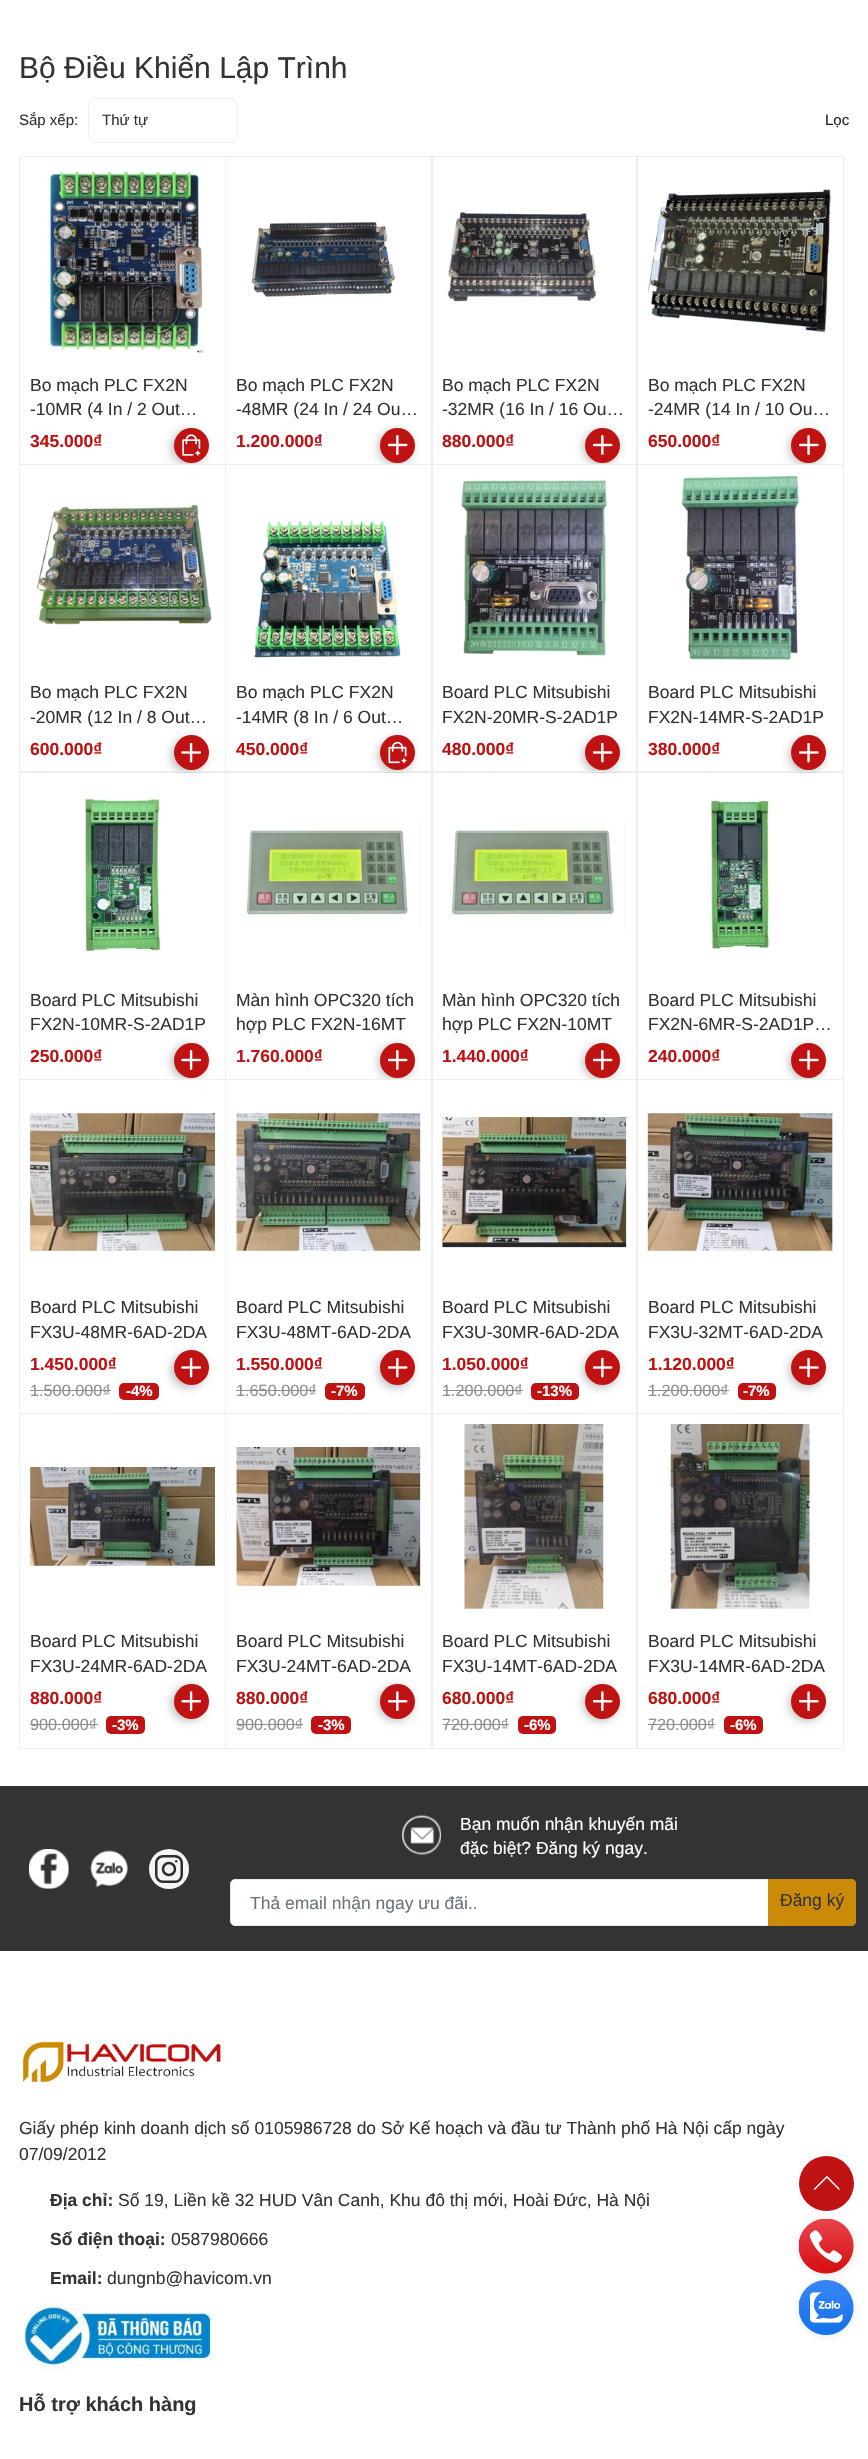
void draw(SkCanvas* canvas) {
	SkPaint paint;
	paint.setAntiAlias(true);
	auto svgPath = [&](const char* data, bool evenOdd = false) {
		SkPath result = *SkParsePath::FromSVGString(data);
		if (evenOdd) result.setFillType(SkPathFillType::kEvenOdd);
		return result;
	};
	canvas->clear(0xffffffff);
	SkFont f1(fontMgr->matchFamilyStyle("Liberation Sans", SkFontStyle::Normal()), 30);
	f1.setSubpixel(true);
	paint.setColor(0xff333333);
	canvas->drawString("Bộ Điều Khiển Lập Trình", 19, 78, f1, paint);
	SkFont f2(fontMgr->matchFamilyStyle("Liberation Sans", SkFontStyle::Normal()), 15);
	f2.setSubpixel(true);
	canvas->drawString("Sắp xếp:", 19, 125, f2, paint);
	paint.setStroke(true);
	paint.setStrokeWidth(1);
	paint.setColor(0xffeeeeee);
	canvas->drawRoundRect(SkRect::MakeXYWH(88.5, 98.5, 149, 44), 7.5, 7.5, paint);
	paint.setStroke(false);
	paint.setColor(0xff333333);
	canvas->drawString("Thứ tự", 102, 125, f2, paint);
	paint.setColor(0xff212529);
	canvas->drawString("Lọc", 825, 125, f2, paint);
	paint.setStroke(true);
	paint.setColor(0xffeeeeee);
	canvas->drawRect(SkRect::MakeXYWH(19.5, 156.5, 206, 308), paint);
	canvas->drawImageRect(SkImages::DeferredFromEncodedData(SkData::MakeFromFileName("img1.png")), SkRect::MakeXYWH(47, 168, 157, 185), SkSamplingOptions());
	SkFont f3(fontMgr->matchFamilyStyle("Liberation Sans", SkFontStyle::Normal()), 17.5);
	f3.setSubpixel(true);
	paint.setStroke(false);
	paint.setColor(0xff333333);
	canvas->drawString("Bo mạch PLC FX2N", 30, 391, f3, paint);
	canvas->drawString("-10MR (4 In / 2 Out…", 30, 415, f3, paint);
	SkFont f4(fontMgr->matchFamilyStyle("Liberation Sans", SkFontStyle::Bold()), 17.5);
	f4.setSubpixel(true);
	paint.setColor(0xffbf1313);
	canvas->drawString("345.000₫", 30, 447, f4, paint);
	paint.setColor(0x40000000);
	paint.setMaskFilter(SkMaskFilter::MakeBlur(kNormal_SkBlurStyle, 4));
	canvas->drawRoundRect(SkRect::MakeXYWH(171, 430, 35, 35), 17.5, 17.5, paint);
	paint.setMaskFilter(nullptr);
	paint.setColor(0xffbf1313);
	canvas->drawCircle(191.5, 445.5, 17.5, paint);
	canvas->drawImageRect(SkImages::DeferredFromEncodedData(SkData::MakeFromFileName("img2.png")), SkRect::MakeXYWH(182, 434, 19, 22), SkSamplingOptions());
	paint.setStroke(true);
	paint.setColor(0xffeeeeee);
	canvas->drawRect(SkRect::MakeXYWH(225.5, 156.5, 207, 308), paint);
	canvas->drawImageRect(SkImages::DeferredFromEncodedData(SkData::MakeFromFileName("img3.png")), SkRect::MakeXYWH(251, 222, 144, 75), SkSamplingOptions());
	paint.setStroke(false);
	paint.setColor(0xff333333);
	canvas->drawString("Bo mạch PLC FX2N", 236, 391, f3, paint);
	canvas->drawString("-48MR (24 In / 24 Ou…", 236, 415, f3, paint);
	paint.setColor(0xffbf1313);
	canvas->drawString("1.200.000₫", 236, 447, f4, paint);
	paint.setColor(0x40000000);
	paint.setMaskFilter(SkMaskFilter::MakeBlur(kNormal_SkBlurStyle, 4));
	canvas->drawRoundRect(SkRect::MakeXYWH(378, 430, 35, 35), 17.5, 17.5, paint);
	paint.setMaskFilter(nullptr);
	paint.setColor(0xffbf1313);
	canvas->drawCircle(397.5, 445.5, 17.5, paint);
	canvas->drawImageRect(SkImages::DeferredFromEncodedData(SkData::MakeFromFileName("img4.png")), SkRect::MakeXYWH(388, 435, 20, 20), SkSamplingOptions());
	paint.setStroke(true);
	paint.setColor(0xffeeeeee);
	canvas->drawRect(SkRect::MakeXYWH(431.5, 156.5, 206, 308), paint);
	canvas->drawImageRect(SkImages::DeferredFromEncodedData(SkData::MakeFromFileName("img5.png")), SkRect::MakeXYWH(447, 212, 150, 90), SkSamplingOptions());
	paint.setStroke(false);
	paint.setColor(0xff333333);
	canvas->drawString("Bo mạch PLC FX2N", 442, 391, f3, paint);
	canvas->drawString("-32MR (16 In / 16 Ou…", 442, 415, f3, paint);
	paint.setColor(0xffbf1313);
	canvas->drawString("880.000₫", 442, 447, f4, paint);
	paint.setColor(0x40000000);
	paint.setMaskFilter(SkMaskFilter::MakeBlur(kNormal_SkBlurStyle, 4));
	canvas->drawRoundRect(SkRect::MakeXYWH(583, 430, 35, 35), 17.5, 17.5, paint);
	paint.setMaskFilter(nullptr);
	paint.setColor(0xffbf1313);
	canvas->drawCircle(602.5, 445.5, 17.5, paint);
	canvas->drawImageRect(SkImages::DeferredFromEncodedData(SkData::MakeFromFileName("img4.png")), SkRect::MakeXYWH(593, 435, 20, 20), SkSamplingOptions());
	paint.setStroke(true);
	paint.setColor(0xffeeeeee);
	canvas->drawRect(SkRect::MakeXYWH(636.5, 156.5, 207, 308), paint);
	canvas->drawImageRect(SkImages::DeferredFromEncodedData(SkData::MakeFromFileName("img6.png")), SkRect::MakeXYWH(647, 189, 184, 144), SkSamplingOptions());
	paint.setStroke(false);
	paint.setColor(0xff333333);
	canvas->drawString("Bo mạch PLC FX2N", 648, 391, f3, paint);
	canvas->drawString("-24MR (14 In / 10 Ou…", 648, 415, f3, paint);
	paint.setColor(0xffbf1313);
	canvas->drawString("650.000₫", 648, 447, f4, paint);
	paint.setColor(0x40000000);
	paint.setMaskFilter(SkMaskFilter::MakeBlur(kNormal_SkBlurStyle, 4));
	canvas->drawRoundRect(SkRect::MakeXYWH(789, 430, 35, 35), 17.5, 17.5, paint);
	paint.setMaskFilter(nullptr);
	paint.setColor(0xffbf1313);
	canvas->drawCircle(808.5, 445.5, 17.5, paint);
	canvas->drawImageRect(SkImages::DeferredFromEncodedData(SkData::MakeFromFileName("img7.png")), SkRect::MakeXYWH(799, 435, 20, 20), SkSamplingOptions());
	paint.setStroke(true);
	paint.setColor(0xffeeeeee);
	canvas->drawRect(SkRect::MakeXYWH(19.5, 464.5, 206, 308), paint);
	paint.setStroke(false);
	paint.setColor(0xffffffff);
	canvas->drawRect(SkRect::MakeXYWH(172, 465, 33, 7), paint);
	canvas->drawImageRect(SkImages::DeferredFromEncodedData(SkData::MakeFromFileName("img8.png")), SkRect::MakeXYWH(37, 504, 175, 121), SkSamplingOptions());
	paint.setColor(0xff333333);
	canvas->drawString("Bo mạch PLC FX2N", 30, 698, f3, paint);
	canvas->drawString("-20MR (12 In / 8 Out…", 30, 723, f3, paint);
	paint.setColor(0xffbf1313);
	canvas->drawString("600.000₫", 30, 755, f4, paint);
	paint.setColor(0x40000000);
	paint.setMaskFilter(SkMaskFilter::MakeBlur(kNormal_SkBlurStyle, 4));
	canvas->drawRoundRect(SkRect::MakeXYWH(171, 738, 35, 35), 17.5, 17.5, paint);
	paint.setMaskFilter(nullptr);
	paint.setColor(0xffbf1313);
	canvas->drawCircle(191.5, 752.5, 17.5, paint);
	canvas->drawImageRect(SkImages::DeferredFromEncodedData(SkData::MakeFromFileName("img9.png")), SkRect::MakeXYWH(181, 743, 20, 20), SkSamplingOptions());
	paint.setStroke(true);
	paint.setColor(0xffeeeeee);
	canvas->drawRect(SkRect::MakeXYWH(225.5, 464.5, 207, 308), paint);
	paint.setStroke(false);
	paint.setColor(0xffffffff);
	canvas->drawRect(SkRect::MakeXYWH(379, 465, 33, 7), paint);
	canvas->drawImageRect(SkImages::DeferredFromEncodedData(SkData::MakeFromFileName("img10.png")), SkRect::MakeXYWH(254, 520, 147, 138), SkSamplingOptions());
	paint.setColor(0xff333333);
	canvas->drawString("Bo mạch PLC FX2N", 236, 698, f3, paint);
	canvas->drawString("-14MR (8 In / 6 Out…", 236, 723, f3, paint);
	paint.setColor(0xffbf1313);
	canvas->drawString("450.000₫", 236, 755, f4, paint);
	paint.setColor(0x40000000);
	paint.setMaskFilter(SkMaskFilter::MakeBlur(kNormal_SkBlurStyle, 4));
	canvas->drawRoundRect(SkRect::MakeXYWH(378, 738, 35, 35), 17.5, 17.5, paint);
	paint.setMaskFilter(nullptr);
	paint.setColor(0xffbf1313);
	canvas->drawCircle(397.5, 752.5, 17.5, paint);
	canvas->drawImageRect(SkImages::DeferredFromEncodedData(SkData::MakeFromFileName("img11.png")), SkRect::MakeXYWH(388, 741, 19, 23), SkSamplingOptions());
	paint.setStroke(true);
	paint.setColor(0xffeeeeee);
	canvas->drawRect(SkRect::MakeXYWH(431.5, 464.5, 206, 308), paint);
	paint.setStroke(false);
	paint.setColor(0xffffffff);
	canvas->drawRect(SkRect::MakeXYWH(584, 465, 33, 7), paint);
	canvas->drawImageRect(SkImages::DeferredFromEncodedData(SkData::MakeFromFileName("img12.png")), SkRect::MakeXYWH(461, 480, 146, 176), SkSamplingOptions());
	paint.setColor(0xff333333);
	canvas->drawString("Board PLC Mitsubishi", 442, 698, f3, paint);
	canvas->drawString("FX2N-20MR-S-2AD1P", 442, 723, f3, paint);
	paint.setColor(0xffbf1313);
	canvas->drawString("480.000₫", 442, 755, f4, paint);
	paint.setColor(0x40000000);
	paint.setMaskFilter(SkMaskFilter::MakeBlur(kNormal_SkBlurStyle, 4));
	canvas->drawRoundRect(SkRect::MakeXYWH(583, 738, 35, 35), 17.5, 17.5, paint);
	paint.setMaskFilter(nullptr);
	paint.setColor(0xffbf1313);
	canvas->drawCircle(602.5, 752.5, 17.5, paint);
	canvas->drawImageRect(SkImages::DeferredFromEncodedData(SkData::MakeFromFileName("img13.png")), SkRect::MakeXYWH(593, 743, 20, 20), SkSamplingOptions());
	paint.setStroke(true);
	paint.setColor(0xffeeeeee);
	canvas->drawRect(SkRect::MakeXYWH(636.5, 464.5, 207, 308), paint);
	paint.setStroke(false);
	paint.setColor(0xffffffff);
	canvas->drawRect(SkRect::MakeXYWH(790, 465, 33, 7), paint);
	canvas->drawImageRect(SkImages::DeferredFromEncodedData(SkData::MakeFromFileName("img14.png")), SkRect::MakeXYWH(681, 476, 118, 184), SkSamplingOptions());
	paint.setColor(0xff333333);
	canvas->drawString("Board PLC Mitsubishi", 648, 698, f3, paint);
	canvas->drawString("FX2N-14MR-S-2AD1P", 648, 723, f3, paint);
	paint.setColor(0xffbf1313);
	canvas->drawString("380.000₫", 648, 755, f4, paint);
	paint.setColor(0x40000000);
	paint.setMaskFilter(SkMaskFilter::MakeBlur(kNormal_SkBlurStyle, 4));
	canvas->drawRoundRect(SkRect::MakeXYWH(789, 738, 35, 35), 17.5, 17.5, paint);
	paint.setMaskFilter(nullptr);
	paint.setColor(0xffbf1313);
	canvas->drawCircle(808.5, 752.5, 17.5, paint);
	canvas->drawImageRect(SkImages::DeferredFromEncodedData(SkData::MakeFromFileName("img15.png")), SkRect::MakeXYWH(799, 743, 20, 20), SkSamplingOptions());
	paint.setStroke(true);
	paint.setColor(0xffeeeeee);
	canvas->drawRect(SkRect::MakeXYWH(19.5, 771.5, 206, 308), paint);
	paint.setStroke(false);
	paint.setColor(0xffffffff);
	canvas->drawRect(SkRect::MakeXYWH(172, 773, 33, 7), paint);
	canvas->drawImageRect(SkImages::DeferredFromEncodedData(SkData::MakeFromFileName("img16.png")), SkRect::MakeXYWH(84, 797, 77, 156), SkSamplingOptions());
	paint.setColor(0xff333333);
	canvas->drawString("Board PLC Mitsubishi", 30, 1006, f3, paint);
	canvas->drawString("FX2N-10MR-S-2AD1P", 30, 1030, f3, paint);
	paint.setColor(0xffbf1313);
	canvas->drawString("250.000₫", 30, 1062, f4, paint);
	paint.setColor(0x40000000);
	paint.setMaskFilter(SkMaskFilter::MakeBlur(kNormal_SkBlurStyle, 4));
	canvas->drawRoundRect(SkRect::MakeXYWH(171, 1045, 35, 35), 17.5, 17.5, paint);
	paint.setMaskFilter(nullptr);
	paint.setColor(0xffbf1313);
	canvas->drawCircle(191.5, 1060.5, 17.5, paint);
	canvas->drawImageRect(SkImages::DeferredFromEncodedData(SkData::MakeFromFileName("img17.png")), SkRect::MakeXYWH(181, 1050, 20, 20), SkSamplingOptions());
	paint.setStroke(true);
	paint.setColor(0xffeeeeee);
	canvas->drawRect(SkRect::MakeXYWH(225.5, 771.5, 207, 308), paint);
	paint.setStroke(false);
	paint.setColor(0xffffffff);
	canvas->drawRect(SkRect::MakeXYWH(379, 773, 33, 7), paint);
	canvas->drawImageRect(SkImages::DeferredFromEncodedData(SkData::MakeFromFileName("img18.png")), SkRect::MakeXYWH(246, 818, 173, 114), SkSamplingOptions());
	paint.setColor(0xff333333);
	canvas->drawString("Màn hình OPC320 tích", 236, 1006, f3, paint);
	canvas->drawString("hợp PLC FX2N-16MT", 236, 1030, f3, paint);
	paint.setColor(0xffbf1313);
	canvas->drawString("1.760.000₫", 236, 1062, f4, paint);
	paint.setColor(0x40000000);
	paint.setMaskFilter(SkMaskFilter::MakeBlur(kNormal_SkBlurStyle, 4));
	canvas->drawRoundRect(SkRect::MakeXYWH(378, 1045, 35, 35), 17.5, 17.5, paint);
	paint.setMaskFilter(nullptr);
	paint.setColor(0xffbf1313);
	canvas->drawCircle(397.5, 1060.5, 17.5, paint);
	canvas->drawImageRect(SkImages::DeferredFromEncodedData(SkData::MakeFromFileName("img4.png")), SkRect::MakeXYWH(388, 1050, 20, 20), SkSamplingOptions());
	paint.setStroke(true);
	paint.setColor(0xffeeeeee);
	canvas->drawRect(SkRect::MakeXYWH(431.5, 771.5, 206, 308), paint);
	paint.setStroke(false);
	paint.setColor(0xffffffff);
	canvas->drawRect(SkRect::MakeXYWH(584, 773, 33, 7), paint);
	canvas->drawImageRect(SkImages::DeferredFromEncodedData(SkData::MakeFromFileName("img19.png")), SkRect::MakeXYWH(451, 818, 174, 114), SkSamplingOptions());
	paint.setColor(0xff333333);
	canvas->drawString("Màn hình OPC320 tích", 442, 1006, f3, paint);
	canvas->drawString("hợp PLC FX2N-10MT", 442, 1030, f3, paint);
	paint.setColor(0xffbf1313);
	canvas->drawString("1.440.000₫", 442, 1062, f4, paint);
	paint.setColor(0x40000000);
	paint.setMaskFilter(SkMaskFilter::MakeBlur(kNormal_SkBlurStyle, 4));
	canvas->drawRoundRect(SkRect::MakeXYWH(583, 1045, 35, 35), 17.5, 17.5, paint);
	paint.setMaskFilter(nullptr);
	paint.setColor(0xffbf1313);
	canvas->drawCircle(602.5, 1060.5, 17.5, paint);
	canvas->drawImageRect(SkImages::DeferredFromEncodedData(SkData::MakeFromFileName("img4.png")), SkRect::MakeXYWH(593, 1050, 20, 20), SkSamplingOptions());
	paint.setStroke(true);
	paint.setColor(0xffeeeeee);
	canvas->drawRect(SkRect::MakeXYWH(636.5, 771.5, 207, 308), paint);
	paint.setStroke(false);
	paint.setColor(0xffffffff);
	canvas->drawRect(SkRect::MakeXYWH(790, 773, 33, 7), paint);
	canvas->drawImageRect(SkImages::DeferredFromEncodedData(SkData::MakeFromFileName("img20.png")), SkRect::MakeXYWH(710, 800, 61, 150), SkSamplingOptions());
	paint.setColor(0xff333333);
	canvas->drawString("Board PLC Mitsubishi", 648, 1006, f3, paint);
	canvas->drawString("FX2N-6MR-S-2AD1P…", 648, 1030, f3, paint);
	paint.setColor(0xffbf1313);
	canvas->drawString("240.000₫", 648, 1062, f4, paint);
	paint.setColor(0x40000000);
	paint.setMaskFilter(SkMaskFilter::MakeBlur(kNormal_SkBlurStyle, 4));
	canvas->drawRoundRect(SkRect::MakeXYWH(789, 1045, 35, 35), 17.5, 17.5, paint);
	paint.setMaskFilter(nullptr);
	paint.setColor(0xffbf1313);
	canvas->drawCircle(808.5, 1060.5, 17.5, paint);
	canvas->drawImageRect(SkImages::DeferredFromEncodedData(SkData::MakeFromFileName("img7.png")), SkRect::MakeXYWH(799, 1050, 20, 20), SkSamplingOptions());
	paint.setStroke(true);
	paint.setColor(0xffeeeeee);
	canvas->drawRect(SkRect::MakeXYWH(19.5, 1079.5, 206, 334), paint);
	paint.setStroke(false);
	paint.setColor(0xffffffff);
	canvas->drawRect(SkRect::MakeXYWH(172, 1080, 33, 7), paint);
	canvas->drawImageRect(SkImages::DeferredFromEncodedData(SkData::MakeFromFileName("img21.png")), SkRect::MakeXYWH(30, 1113, 185, 138), SkSamplingOptions());
	paint.setColor(0xff333333);
	canvas->drawString("Board PLC Mitsubishi", 30, 1313, f3, paint);
	canvas->drawString("FX3U-48MR-6AD-2DA", 30, 1338, f3, paint);
	paint.setColor(0xffbf1313);
	canvas->drawString("1.450.000₫", 30, 1370, f4, paint);
	SkFont f5(fontMgr->matchFamilyStyle("Liberation Sans", SkFontStyle::Normal()), 16.25);
	f5.setSubpixel(true);
	paint.setColor(0xff8f8f8f);
	canvas->drawString("1.500.000₫", 30, 1396, f5, paint);
	canvas->drawRect(SkRect::MakeXYWH(30, 1390, 81, 1), paint);
	paint.setColor(0xffbf1313);
	canvas->drawRoundRect(SkRect::MakeXYWH(119, 1383, 40, 17), 5, 5, paint);
	SkFont f6(fontMgr->matchFamilyStyle("Liberation Sans", SkFontStyle::Bold()), 15);
	f6.setSubpixel(true);
	paint.setColor(0xffffffff);
	canvas->drawString("-4%", 126, 1396, f6, paint);
	paint.setColor(0x40000000);
	paint.setMaskFilter(SkMaskFilter::MakeBlur(kNormal_SkBlurStyle, 4));
	canvas->drawRoundRect(SkRect::MakeXYWH(171, 1353, 35, 35), 17.5, 17.5, paint);
	paint.setMaskFilter(nullptr);
	paint.setColor(0xffbf1313);
	canvas->drawCircle(191.5, 1367.5, 17.5, paint);
	canvas->drawImageRect(SkImages::DeferredFromEncodedData(SkData::MakeFromFileName("img9.png")), SkRect::MakeXYWH(181, 1358, 20, 20), SkSamplingOptions());
	paint.setStroke(true);
	paint.setColor(0xffeeeeee);
	canvas->drawRect(SkRect::MakeXYWH(225.5, 1079.5, 207, 334), paint);
	paint.setStroke(false);
	paint.setColor(0xffffffff);
	canvas->drawRect(SkRect::MakeXYWH(379, 1080, 33, 7), paint);
	canvas->drawImageRect(SkImages::DeferredFromEncodedData(SkData::MakeFromFileName("img22.png")), SkRect::MakeXYWH(236, 1113, 185, 138), SkSamplingOptions());
	paint.setColor(0xff333333);
	canvas->drawString("Board PLC Mitsubishi", 236, 1313, f3, paint);
	canvas->drawString("FX3U-48MT-6AD-2DA", 236, 1338, f3, paint);
	paint.setColor(0xffbf1313);
	canvas->drawString("1.550.000₫", 236, 1370, f4, paint);
	paint.setColor(0xff8f8f8f);
	canvas->drawString("1.650.000₫", 236, 1396, f5, paint);
	canvas->drawRect(SkRect::MakeXYWH(236, 1390, 80, 1), paint);
	paint.setColor(0xffbf1313);
	canvas->drawRoundRect(SkRect::MakeXYWH(325, 1383, 40, 17), 5, 5, paint);
	paint.setColor(0xffffffff);
	canvas->drawString("-7%", 331, 1396, f6, paint);
	paint.setColor(0x40000000);
	paint.setMaskFilter(SkMaskFilter::MakeBlur(kNormal_SkBlurStyle, 4));
	canvas->drawRoundRect(SkRect::MakeXYWH(378, 1353, 35, 35), 17.5, 17.5, paint);
	paint.setMaskFilter(nullptr);
	paint.setColor(0xffbf1313);
	canvas->drawCircle(397.5, 1367.5, 17.5, paint);
	canvas->drawImageRect(SkImages::DeferredFromEncodedData(SkData::MakeFromFileName("img13.png")), SkRect::MakeXYWH(388, 1358, 20, 20), SkSamplingOptions());
	paint.setStroke(true);
	paint.setColor(0xffeeeeee);
	canvas->drawRect(SkRect::MakeXYWH(431.5, 1079.5, 206, 334), paint);
	paint.setStroke(false);
	paint.setColor(0xffffffff);
	canvas->drawRect(SkRect::MakeXYWH(584, 1080, 33, 7), paint);
	canvas->drawImageRect(SkImages::DeferredFromEncodedData(SkData::MakeFromFileName("img23.png")), SkRect::MakeXYWH(442, 1117, 185, 131), SkSamplingOptions());
	paint.setColor(0xff333333);
	canvas->drawString("Board PLC Mitsubishi", 442, 1313, f3, paint);
	canvas->drawString("FX3U-30MR-6AD-2DA", 442, 1338, f3, paint);
	paint.setColor(0xffbf1313);
	canvas->drawString("1.050.000₫", 442, 1370, f4, paint);
	paint.setColor(0xff8f8f8f);
	canvas->drawString("1.200.000₫", 442, 1396, f5, paint);
	canvas->drawRect(SkRect::MakeXYWH(443, 1390, 80, 1), paint);
	paint.setColor(0xffbf1313);
	canvas->drawRoundRect(SkRect::MakeXYWH(531, 1383, 48, 17), 5, 5, paint);
	paint.setColor(0xffffffff);
	canvas->drawString("-13%", 537, 1396, f6, paint);
	paint.setColor(0x40000000);
	paint.setMaskFilter(SkMaskFilter::MakeBlur(kNormal_SkBlurStyle, 4));
	canvas->drawRoundRect(SkRect::MakeXYWH(583, 1353, 35, 35), 17.5, 17.5, paint);
	paint.setMaskFilter(nullptr);
	paint.setColor(0xffbf1313);
	canvas->drawCircle(602.5, 1367.5, 17.5, paint);
	canvas->drawImageRect(SkImages::DeferredFromEncodedData(SkData::MakeFromFileName("img13.png")), SkRect::MakeXYWH(593, 1358, 20, 20), SkSamplingOptions());
	paint.setStroke(true);
	paint.setColor(0xffeeeeee);
	canvas->drawRect(SkRect::MakeXYWH(636.5, 1079.5, 207, 334), paint);
	paint.setStroke(false);
	paint.setColor(0xffffffff);
	canvas->drawRect(SkRect::MakeXYWH(790, 1080, 33, 7), paint);
	canvas->drawImageRect(SkImages::DeferredFromEncodedData(SkData::MakeFromFileName("img24.png")), SkRect::MakeXYWH(647, 1113, 186, 138), SkSamplingOptions());
	paint.setColor(0xff333333);
	canvas->drawString("Board PLC Mitsubishi", 648, 1313, f3, paint);
	canvas->drawString("FX3U-32MT-6AD-2DA", 648, 1338, f3, paint);
	paint.setColor(0xffbf1313);
	canvas->drawString("1.120.000₫", 648, 1370, f4, paint);
	paint.setColor(0xff8f8f8f);
	canvas->drawString("1.200.000₫", 648, 1396, f5, paint);
	canvas->drawRect(SkRect::MakeXYWH(648, 1390, 81, 1), paint);
	paint.setColor(0xffbf1313);
	canvas->drawRoundRect(SkRect::MakeXYWH(738, 1383, 38, 17), 5, 5, paint);
	paint.setColor(0xffffffff);
	canvas->drawString("-7%", 743, 1396, f6, paint);
	paint.setColor(0x40000000);
	paint.setMaskFilter(SkMaskFilter::MakeBlur(kNormal_SkBlurStyle, 4));
	canvas->drawRoundRect(SkRect::MakeXYWH(789, 1353, 35, 35), 17.5, 17.5, paint);
	paint.setMaskFilter(nullptr);
	paint.setColor(0xffbf1313);
	canvas->drawCircle(808.5, 1367.5, 17.5, paint);
	canvas->drawImageRect(SkImages::DeferredFromEncodedData(SkData::MakeFromFileName("img15.png")), SkRect::MakeXYWH(799, 1358, 20, 20), SkSamplingOptions());
	paint.setStroke(true);
	paint.setColor(0xffeeeeee);
	canvas->drawRect(SkRect::MakeXYWH(19.5, 1413.5, 206, 335), paint);
	canvas->drawImageRect(SkImages::DeferredFromEncodedData(SkData::MakeFromFileName("img25.png")), SkRect::MakeXYWH(30, 1467, 185, 99), SkSamplingOptions());
	paint.setStroke(false);
	paint.setColor(0xff333333);
	canvas->drawString("Board PLC Mitsubishi", 30, 1647, f3, paint);
	canvas->drawString("FX3U-24MR-6AD-2DA", 30, 1672, f3, paint);
	paint.setColor(0xffbf1313);
	canvas->drawString("880.000₫", 30, 1704, f4, paint);
	paint.setColor(0xff8f8f8f);
	canvas->drawString("900.000₫", 30, 1730, f5, paint);
	canvas->drawRect(SkRect::MakeXYWH(30, 1724, 68, 1), paint);
	paint.setColor(0xffbf1313);
	canvas->drawRoundRect(SkRect::MakeXYWH(106, 1716, 39, 18), 5, 5, paint);
	paint.setColor(0xffffffff);
	canvas->drawString("-3%", 112, 1730, f6, paint);
	paint.setColor(0x40000000);
	paint.setMaskFilter(SkMaskFilter::MakeBlur(kNormal_SkBlurStyle, 4));
	canvas->drawRoundRect(SkRect::MakeXYWH(171, 1686, 35, 35), 17.5, 17.5, paint);
	paint.setMaskFilter(nullptr);
	paint.setColor(0xffbf1313);
	canvas->drawCircle(191.5, 1701.5, 17.5, paint);
	canvas->drawImageRect(SkImages::DeferredFromEncodedData(SkData::MakeFromFileName("img26.png")), SkRect::MakeXYWH(181, 1691, 20, 20), SkSamplingOptions());
	paint.setStroke(true);
	paint.setColor(0xffeeeeee);
	canvas->drawRect(SkRect::MakeXYWH(225.5, 1413.5, 207, 335), paint);
	canvas->drawImageRect(SkImages::DeferredFromEncodedData(SkData::MakeFromFileName("img27.png")), SkRect::MakeXYWH(236, 1447, 185, 139), SkSamplingOptions());
	paint.setStroke(false);
	paint.setColor(0xff333333);
	canvas->drawString("Board PLC Mitsubishi", 236, 1647, f3, paint);
	canvas->drawString("FX3U-24MT-6AD-2DA", 236, 1672, f3, paint);
	paint.setColor(0xffbf1313);
	canvas->drawString("880.000₫", 236, 1704, f4, paint);
	paint.setColor(0xff8f8f8f);
	canvas->drawString("900.000₫", 236, 1730, f5, paint);
	canvas->drawRect(SkRect::MakeXYWH(236, 1724, 67, 1), paint);
	paint.setColor(0xffbf1313);
	canvas->drawRoundRect(SkRect::MakeXYWH(311, 1716, 40, 18), 5, 5, paint);
	paint.setColor(0xffffffff);
	canvas->drawString("-3%", 318, 1730, f6, paint);
	paint.setColor(0x40000000);
	paint.setMaskFilter(SkMaskFilter::MakeBlur(kNormal_SkBlurStyle, 4));
	canvas->drawRoundRect(SkRect::MakeXYWH(378, 1686, 35, 35), 17.5, 17.5, paint);
	paint.setMaskFilter(nullptr);
	paint.setColor(0xffbf1313);
	canvas->drawCircle(397.5, 1701.5, 17.5, paint);
	canvas->drawImageRect(SkImages::DeferredFromEncodedData(SkData::MakeFromFileName("img28.png")), SkRect::MakeXYWH(388, 1691, 20, 20), SkSamplingOptions());
	paint.setStroke(true);
	paint.setColor(0xffeeeeee);
	canvas->drawRect(SkRect::MakeXYWH(431.5, 1413.5, 206, 335), paint);
	canvas->drawImageRect(SkImages::DeferredFromEncodedData(SkData::MakeFromFileName("img29.png")), SkRect::MakeXYWH(464, 1423, 140, 186), SkSamplingOptions());
	paint.setStroke(false);
	paint.setColor(0xff333333);
	canvas->drawString("Board PLC Mitsubishi", 442, 1647, f3, paint);
	canvas->drawString("FX3U-14MT-6AD-2DA", 442, 1672, f3, paint);
	paint.setColor(0xffbf1313);
	canvas->drawString("680.000₫", 442, 1704, f4, paint);
	paint.setColor(0xff8f8f8f);
	canvas->drawString("720.000₫", 442, 1730, f5, paint);
	canvas->drawRect(SkRect::MakeXYWH(443, 1724, 66, 1), paint);
	paint.setColor(0xffbf1313);
	canvas->drawRoundRect(SkRect::MakeXYWH(518, 1716, 38, 18), 5, 5, paint);
	paint.setColor(0xffffffff);
	canvas->drawString("-6%", 524, 1730, f6, paint);
	paint.setColor(0x40000000);
	paint.setMaskFilter(SkMaskFilter::MakeBlur(kNormal_SkBlurStyle, 4));
	canvas->drawRoundRect(SkRect::MakeXYWH(583, 1686, 35, 35), 17.5, 17.5, paint);
	paint.setMaskFilter(nullptr);
	paint.setColor(0xffbf1313);
	canvas->drawCircle(602.5, 1701.5, 17.5, paint);
	canvas->drawImageRect(SkImages::DeferredFromEncodedData(SkData::MakeFromFileName("img28.png")), SkRect::MakeXYWH(593, 1691, 20, 20), SkSamplingOptions());
	paint.setStroke(true);
	paint.setColor(0xffeeeeee);
	canvas->drawRect(SkRect::MakeXYWH(636.5, 1413.5, 207, 335), paint);
	canvas->drawImageRect(SkImages::DeferredFromEncodedData(SkData::MakeFromFileName("img30.png")), SkRect::MakeXYWH(670, 1423, 140, 186), SkSamplingOptions());
	paint.setStroke(false);
	paint.setColor(0xff333333);
	canvas->drawString("Board PLC Mitsubishi", 648, 1647, f3, paint);
	canvas->drawString("FX3U-14MR-6AD-2DA", 648, 1672, f3, paint);
	paint.setColor(0xffbf1313);
	canvas->drawString("680.000₫", 648, 1704, f4, paint);
	paint.setColor(0xff8f8f8f);
	canvas->drawString("720.000₫", 648, 1730, f5, paint);
	canvas->drawRect(SkRect::MakeXYWH(648, 1724, 67, 1), paint);
	paint.setColor(0xffbf1313);
	canvas->drawRoundRect(SkRect::MakeXYWH(724, 1716, 39, 18), 5, 5, paint);
	paint.setColor(0xffffffff);
	canvas->drawString("-6%", 730, 1730, f6, paint);
	paint.setColor(0x40000000);
	paint.setMaskFilter(SkMaskFilter::MakeBlur(kNormal_SkBlurStyle, 4));
	canvas->drawRoundRect(SkRect::MakeXYWH(789, 1686, 35, 35), 17.5, 17.5, paint);
	paint.setMaskFilter(nullptr);
	paint.setColor(0xffbf1313);
	canvas->drawCircle(808.5, 1701.5, 17.5, paint);
	canvas->drawImageRect(SkImages::DeferredFromEncodedData(SkData::MakeFromFileName("img31.png")), SkRect::MakeXYWH(799, 1691, 20, 20), SkSamplingOptions());
	paint.setColor(0xff333333);
	canvas->drawRect(SkRect::MakeXYWH(0, 1786, 868, 165), paint);
	canvas->drawImageRect(SkImages::DeferredFromEncodedData(SkData::MakeFromFileName("img32.png")), SkRect::MakeXYWH(29, 1849, 40, 40), SkSamplingOptions());
	canvas->drawImageRect(SkImages::DeferredFromEncodedData(SkData::MakeFromFileName("img33.png")), SkRect::MakeXYWH(90, 1850, 38, 38), SkSamplingOptions());
	paint.setColor(0xfff5f5f5);
	canvas->drawCircle(169, 1869, 20, paint);
	paint.setStroke(true);
	paint.setStrokeWidth(2.5);
	paint.setColor(0xff2d2d2d);
	canvas->drawCircle(169, 1869, 6, paint);
	canvas->drawRoundRect(SkRect::MakeXYWH(156.25, 1856.25, 25.5, 25.5), 6.75, 6.75, paint);
	paint.setStroke(false);
	canvas->drawCircle(176.2, 1861.2, 1.2, paint);
	canvas->drawImageRect(SkImages::DeferredFromEncodedData(SkData::MakeFromFileName("img34.png")), SkRect::MakeXYWH(402, 1815, 39, 40), SkSamplingOptions());
	paint.setColor(0xffffffff);
	canvas->drawString("Bạn muốn nhận khuyến mãi", 460, 1830, f3, paint);
	canvas->drawString("đặc biệt? Đăng ký ngay.", 460, 1854, f3, paint);
	canvas->drawRoundRect(SkRect::MakeXYWH(230.5, 1879.5, 625, 46), 4.5, 4.5, paint);
	paint.setStroke(true);
	paint.setStrokeWidth(1);
	paint.setColor(0xffebebeb);
	canvas->drawRoundRect(SkRect::MakeXYWH(230.5, 1879.5, 625, 46), 4.5, 4.5, paint);
	paint.setStroke(false);
	paint.setColor(0xff6c757d);
	canvas->drawString("Thả email nhận ngay ưu đãi..", 250, 1909, f3, paint);
	paint.setColor(0xffcc8b07);
	canvas->drawPath(svgPath("M768 1879H851C854 1879 856 1881 856 1884V1921C856 1924 854 1926 851 1926H768Z"), paint);
	paint.setColor(0xff333333);
	canvas->drawString("Đăng ký", 780, 1906, f3, paint);
	canvas->drawImageRect(SkImages::DeferredFromEncodedData(SkData::MakeFromFileName("img35.png")), SkRect::MakeXYWH(23, 2041, 198, 42), SkSamplingOptions());
	canvas->drawString("Giấy phép kinh doanh dịch số 0105986728 do Sở Kế hoạch và đầu tư Thành phố Hà Nội cấp ngày", 19, 2134, f3, paint);
	canvas->drawString("07/09/2012", 19, 2160, f3, paint);
	canvas->drawString("Địa chỉ:", 50, 2206, f4, paint);
	canvas->drawString("Số 19, Liền kề 32 HUD Vân Canh, Khu đô thị mới, Hoài Đức, Hà Nội", 118, 2206, f3, paint);
	canvas->drawString("Số điện thoại:", 50, 2245, f4, paint);
	canvas->drawString("0587980666", 171, 2245, f3, paint);
	canvas->drawString("Email:", 50, 2284, f4, paint);
	canvas->drawString("dungnb@havicom.vn", 107, 2284, f3, paint);
	canvas->drawImageRect(SkImages::DeferredFromEncodedData(SkData::MakeFromFileName("img36.png")), SkRect::MakeXYWH(19, 2302, 199, 69), SkSamplingOptions());
	SkFont f7(fontMgr->matchFamilyStyle("Liberation Sans", SkFontStyle::Bold()), 20);
	f7.setSubpixel(true);
	canvas->drawString("Hỗ trợ khách hàng", 19, 2411, f7, paint);
	paint.setColor(0xffbf1313);
	canvas->drawCircle(826.5, 2183.5, 27.5, paint);
	canvas->drawImageRect(SkImages::DeferredFromEncodedData(SkData::MakeFromFileName("img37.png")), SkRect::MakeXYWH(813, 2176, 27, 14), SkSamplingOptions());
	paint.setColor(0x1c000000);
	paint.setMaskFilter(SkMaskFilter::MakeBlur(kNormal_SkBlurStyle, 3));
	canvas->drawRoundRect(SkRect::MakeXYWH(799, 2220, 55, 55), 27.5, 27.5, paint);
	paint.setMaskFilter(nullptr);
	canvas->drawImageRect(SkImages::DeferredFromEncodedData(SkData::MakeFromFileName("img38.png")), SkRect::MakeXYWH(799, 2219, 55, 55), SkSamplingOptions());
	paint.setMaskFilter(SkMaskFilter::MakeBlur(kNormal_SkBlurStyle, 3));
	canvas->drawRoundRect(SkRect::MakeXYWH(799, 2281, 55, 55), 27.5, 27.5, paint);
	paint.setMaskFilter(nullptr);
	canvas->drawImageRect(SkImages::DeferredFromEncodedData(SkData::MakeFromFileName("img39.png")), SkRect::MakeXYWH(799, 2280, 55, 55), SkSamplingOptions());
}
